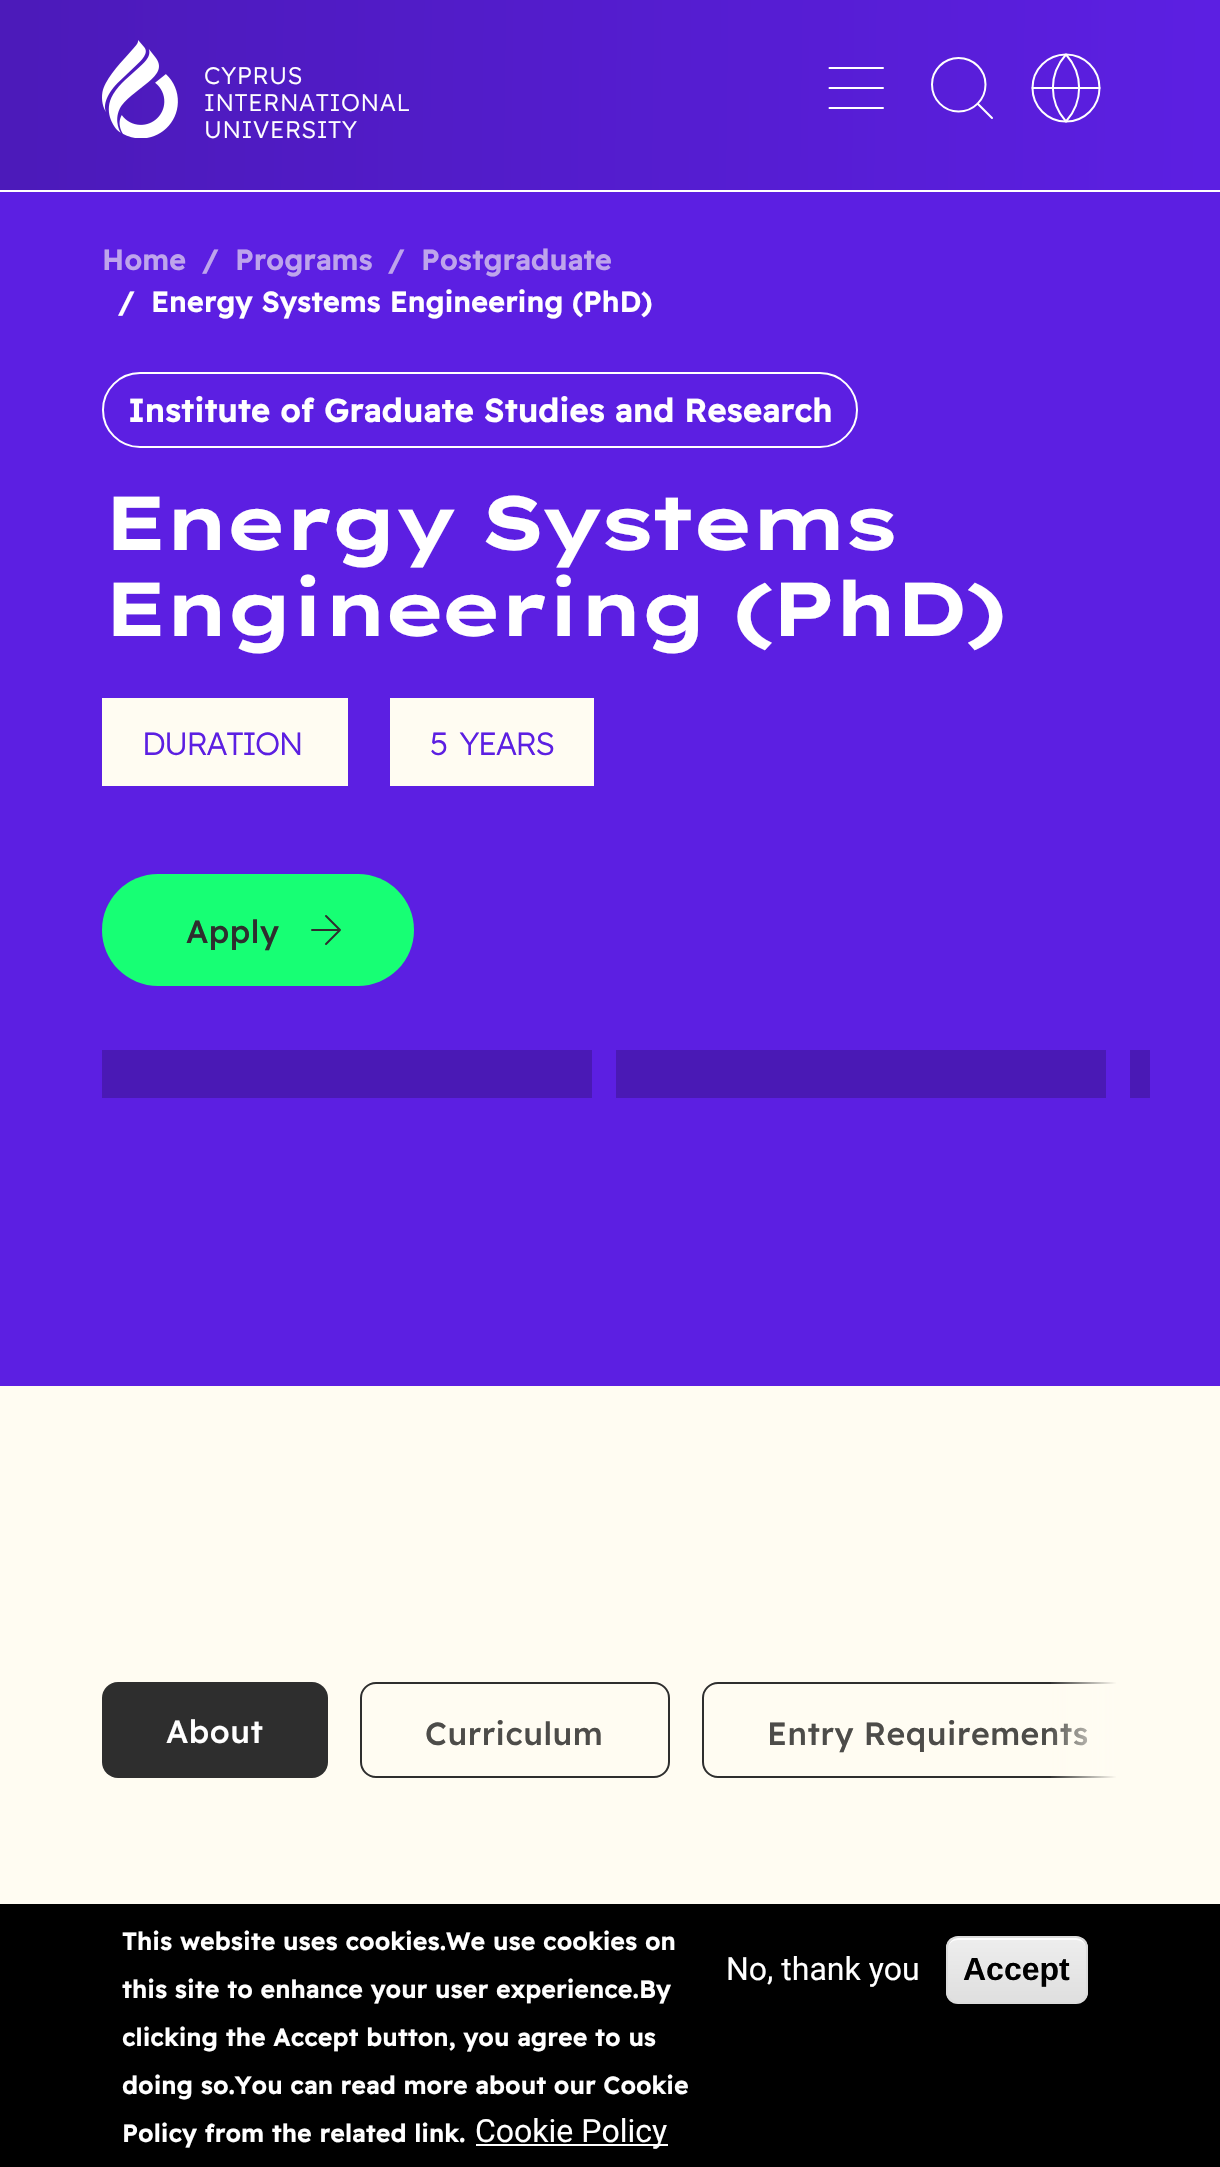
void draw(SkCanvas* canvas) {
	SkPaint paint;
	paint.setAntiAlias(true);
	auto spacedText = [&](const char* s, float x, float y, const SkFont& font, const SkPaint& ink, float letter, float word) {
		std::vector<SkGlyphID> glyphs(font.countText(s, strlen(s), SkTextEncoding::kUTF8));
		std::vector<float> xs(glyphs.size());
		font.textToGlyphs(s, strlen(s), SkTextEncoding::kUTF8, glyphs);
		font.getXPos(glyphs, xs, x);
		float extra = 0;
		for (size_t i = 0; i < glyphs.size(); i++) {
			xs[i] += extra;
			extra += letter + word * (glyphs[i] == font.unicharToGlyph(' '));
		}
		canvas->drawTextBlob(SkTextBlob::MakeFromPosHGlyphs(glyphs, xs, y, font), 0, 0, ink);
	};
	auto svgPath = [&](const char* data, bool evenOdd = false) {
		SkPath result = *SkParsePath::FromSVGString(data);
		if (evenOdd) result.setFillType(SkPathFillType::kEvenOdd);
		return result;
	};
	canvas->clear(0xfffffcf2);
	{
		const SkColor colors[] = {0xff4c1aba, 0xff5c1fe2};
		const float stops[] = {0.02, 0.99};
		const SkPoint ends[] = {{-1.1, 87}, {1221, 103}};
		paint.setShader(SkGradientShader::MakeLinear(ends, colors, stops, 2, SkTileMode::kClamp));
		paint.setAlpha(255);
	}
	canvas->drawRect(SkRect::MakeXYWH(0, 0, 1220, 190), paint);
	paint.setShader(nullptr);
	paint.setColor(0xffffffff);
	canvas->drawRect(SkRect::MakeXYWH(0, 190, 1220, 2), paint);
	canvas->drawImageRect(SkImages::DeferredFromEncodedData(SkData::MakeFromFileName("img1.png")), SkRect::MakeXYWH(102, 40, 76, 98), SkSamplingOptions());
	SkFont f1(fontMgr->matchFamilyStyle("Readex Pro", SkFontStyle(300, SkFontStyle::kNormal_Width, SkFontStyle::kUpright_Slant)), 24);
	f1.setSubpixel(true);
	spacedText("CYPRUS", 204, 84, f1, paint, 0.65, 0);
	spacedText("INTERNATIONAL", 204, 111, f1, paint, 0.65, 0);
	spacedText("UNIVERSITY", 204, 138, f1, paint, 0.65, 0);
	paint.setStroke(true);
	paint.setStrokeWidth(2);
	paint.setStrokeCap(SkPaint::kRound_Cap);
	paint.setStrokeJoin(SkPaint::kRound_Join);
	canvas->drawPath(svgPath("M829.5 88H883M829.5 68H883M829.5 108H883"), paint);
	canvas->drawPath(svgPath("M958.5 111.5C973.5 111.5 985.5 99.5 985.5 84.5C985.5 70 973.5 58 958.5 58C944 58 932 70 932 84.5C932 99.5 944 111.5 958.5 111.5ZM992 118L977.5 103.5"), paint);
	canvas->drawPath(svgPath("M1066 121.5C1084.5 121.5 1099.5 106.5 1099.5 88C1099.5 69.5 1084.5 54.5 1066 54.5C1047.5 54.5 1032.5 69.5 1032.5 88C1032.5 106.5 1047.5 121.5 1066 121.5Z"), paint);
	canvas->drawPath(svgPath("M1032.5 88H1099.5"), paint);
	canvas->drawPath(svgPath("M1066 54.5C1083.5 74 1083.5 102 1066 121.5C1048.5 102 1048.5 74 1066 54.5Z"), paint);
	paint.setStroke(false);
	paint.setColor(0xff5c1fe2);
	canvas->drawRect(SkRect::MakeXYWH(0, 192, 1220, 1194), paint);
	SkFont f2(fontMgr->matchFamilyStyle("Readex Pro", SkFontStyle::Bold()), 28);
	f2.setSubpixel(true);
	paint.setColor(0xffbea4ec);
	spacedText("Home", 102, 270, f2, paint, 0.65, 0);
	spacedText("/", 202, 270, f2, paint, 0.65, 0);
	spacedText("Programs", 235, 270, f2, paint, 0.65, 0);
	spacedText("/", 388, 270, f2, paint, 0.65, 0);
	spacedText("Postgraduate", 421, 270, f2, paint, 0.65, 0);
	paint.setColor(0xffffffff);
	spacedText("/", 118, 312, f2, paint, 0.65, 0);
	spacedText("Energy Systems Engineering (PhD)", 151, 312, f2, paint, 0.65, 0);
	paint.setStroke(true);
	paint.setStrokeCap(SkPaint::kButt_Cap);
	paint.setStrokeJoin(SkPaint::kMiter_Join);
	canvas->drawRoundRect(SkRect::MakeXYWH(103, 373, 754, 74), 37, 37, paint);
	SkFont f3(fontMgr->matchFamilyStyle("Readex Pro", SkFontStyle::Bold()), 32);
	f3.setSubpixel(true);
	paint.setStroke(false);
	spacedText("Institute of Graduate Studies and Research", 128, 422, f3, paint, 0.65, 0);
	SkFont f4(fontMgr->matchFamilyStyle("Lexend Tera", SkFontStyle::Bold()), 76);
	f4.setSubpixel(true);
	spacedText("Energy Systems", 102, 550, f4, paint, -9.1, 0);
	spacedText("Engineering (PhD)", 102, 636, f4, paint, -9.1, 0);
	paint.setColor(0xfffffcf2);
	canvas->drawRect(SkRect::MakeXYWH(102, 698, 246, 88), paint);
	SkFont f5(fontMgr->matchFamilyStyle("Readex Pro", SkFontStyle(300, SkFontStyle::kNormal_Width, SkFontStyle::kUpright_Slant)), 32);
	f5.setSubpixel(true);
	paint.setColor(0xff5c1fe2);
	spacedText("DURATION", 142, 755, f5, paint, -1.5, 0);
	paint.setColor(0xfffffcf2);
	canvas->drawRect(SkRect::MakeXYWH(390, 698, 204, 88), paint);
	paint.setColor(0xff5c1fe2);
	spacedText("5 YEARS", 430, 755, f5, paint, -1.5, 5);
	paint.setColor(0xff17ff74);
	canvas->drawRoundRect(SkRect::MakeXYWH(102, 874, 312, 112), 56, 56, paint);
	SkFont f6(fontMgr->matchFamilyStyle("Readex Pro", SkFontStyle(500, SkFontStyle::kNormal_Width, SkFontStyle::kUpright_Slant)), 32);
	f6.setSubpixel(true);
	paint.setColor(0xff2e2e2e);
	spacedText("Apply", 186, 943, f6, paint, 0.5, 0);
	paint.setStroke(true);
	paint.setStrokeCap(SkPaint::kRound_Cap);
	paint.setStrokeJoin(SkPaint::kRound_Join);
	canvas->drawPath(svgPath("M312 930H340M326 916L340 930L326 944"), paint);
	paint.setStroke(false);
	paint.setColor(0xff4a19b5);
	canvas->drawRect(SkRect::MakeXYWH(102, 1050, 490, 48), paint);
	canvas->drawRect(SkRect::MakeXYWH(616, 1050, 490, 48), paint);
	canvas->drawRect(SkRect::MakeXYWH(1130, 1050, 20, 48), paint);
	canvas->save();
	canvas->clipRect(SkRect::MakeXYWH(102, 1682, 1016, 96));
	paint.setStroke(true);
	paint.setStrokeCap(SkPaint::kButt_Cap);
	paint.setStrokeJoin(SkPaint::kMiter_Join);
	paint.setColor(0xff2e2e2e);
	canvas->drawRoundRect(SkRect::MakeXYWH(703, 1683, 450, 94), 15, 15, paint);
	canvas->restore();
	paint.setStroke(false);
	paint.setColor(0xff4d4c49);
	spacedText("Entry Requirements", 767, 1745, f6, paint, 0.5, 0);
	{
		const SkColor colors[] = {0xfffffcf2, 0x00fffcf2};
		const float stops[] = {0.01, 0.53};
		const SkPoint ends[] = {{1118, 1730}, {988, 1730}};
		paint.setShader(SkGradientShader::MakeLinear(ends, colors, stops, 2, SkTileMode::kClamp));
		paint.setAlpha(255);
	}
	canvas->drawRect(SkRect::MakeXYWH(1051, 1682, 67, 96), paint);
	paint.setShader(nullptr);
	paint.setColor(0xff2e2e2e);
	canvas->drawRoundRect(SkRect::MakeXYWH(102, 1682, 226, 96), 16, 16, paint);
	paint.setColor(0xffffffff);
	spacedText("About", 166, 1743, f6, paint, 0.5, 0);
	paint.setStroke(true);
	paint.setColor(0xff2e2e2e);
	canvas->drawRoundRect(SkRect::MakeXYWH(361, 1683, 308, 94), 15, 15, paint);
	paint.setStroke(false);
	paint.setColor(0xff4d4c49);
	spacedText("Curriculum", 425, 1745, f6, paint, 0.5, 0);
	paint.setColor(0xff000000);
	canvas->drawRect(SkRect::MakeXYWH(0, 1904, 1220, 263), paint);
	SkFont f7(fontMgr->matchFamilyStyle("Readex Pro", SkFontStyle::Bold()), 24);
	f7.setSubpixel(true);
	paint.setColor(0xffffffff);
	spacedText("This website uses cookies.We use cookies on", 122, 1950, f7, paint, 0.65, 0);
	spacedText("this site to enhance your user experience.By", 122, 1998, f7, paint, 0.65, 0);
	spacedText("clicking the Accept button, you agree to us", 122, 2046, f7, paint, 0.65, 0);
	spacedText("doing so.You can read more about our Cookie", 122, 2094, f7, paint, 0.65, 0);
	spacedText("Policy from the related link.", 122, 2142, f7, paint, 0.65, 0);
	canvas->drawRect(SkRect::MakeXYWH(476, 2144, 192, 2), paint);
	SkFont f8(fontMgr->matchFamilyStyle("Roboto", SkFontStyle::Normal()), 32);
	f8.setSubpixel(true);
	canvas->drawString("Cookie Policy", 475, 2142, f8, paint);
	canvas->drawString("No, thank you", 726, 1980, f8, paint);
	canvas->save();
	canvas->clipPath(svgPath("M958 1936H1076C1082.5 1936 1088 1941.5 1088 1948V1992C1088 1998.5 1082.5 2004 1076 2004H958C951.5 2004 946 1998.5 946 1992V1948C946 1941.5 951.5 1936 958 1936Z"), true);
	{
		const SkColor colors[] = {0xffededed, 0xffdfdfdf};
		const float stops[] = {0.05, 1};
		const SkPoint ends[] = {{1017, 1938}, {1017, 2002}};
		paint.setShader(SkGradientShader::MakeLinear(ends, colors, stops, 2, SkTileMode::kClamp));
		paint.setAlpha(255);
	}
	canvas->drawRect(SkRect::MakeXYWH(946, 1938, 142, 64), paint);
	canvas->restore();
	paint.setShader(nullptr);
	paint.setColor(0xffffffff);
	canvas->drawPath(svgPath("M958 1940H1076C1082 1940 1086 1944 1086 1950C1086 1933 1068 1938 1056 1938H978C966 1938 948 1933 948 1950C948 1944 952 1940 958 1940Z"), paint);
	paint.setStroke(true);
	paint.setColor(0xffdcdcdc);
	canvas->drawRoundRect(SkRect::MakeXYWH(947, 1937, 140, 66), 11, 11, paint);
	SkFont f9(fontMgr->matchFamilyStyle("Liberation Sans", SkFontStyle::Bold()), 32);
	f9.setSubpixel(true);
	paint.setStroke(false);
	paint.setColor(0xff000000);
	canvas->drawString("Accept", 963, 1980, f9, paint);
}
